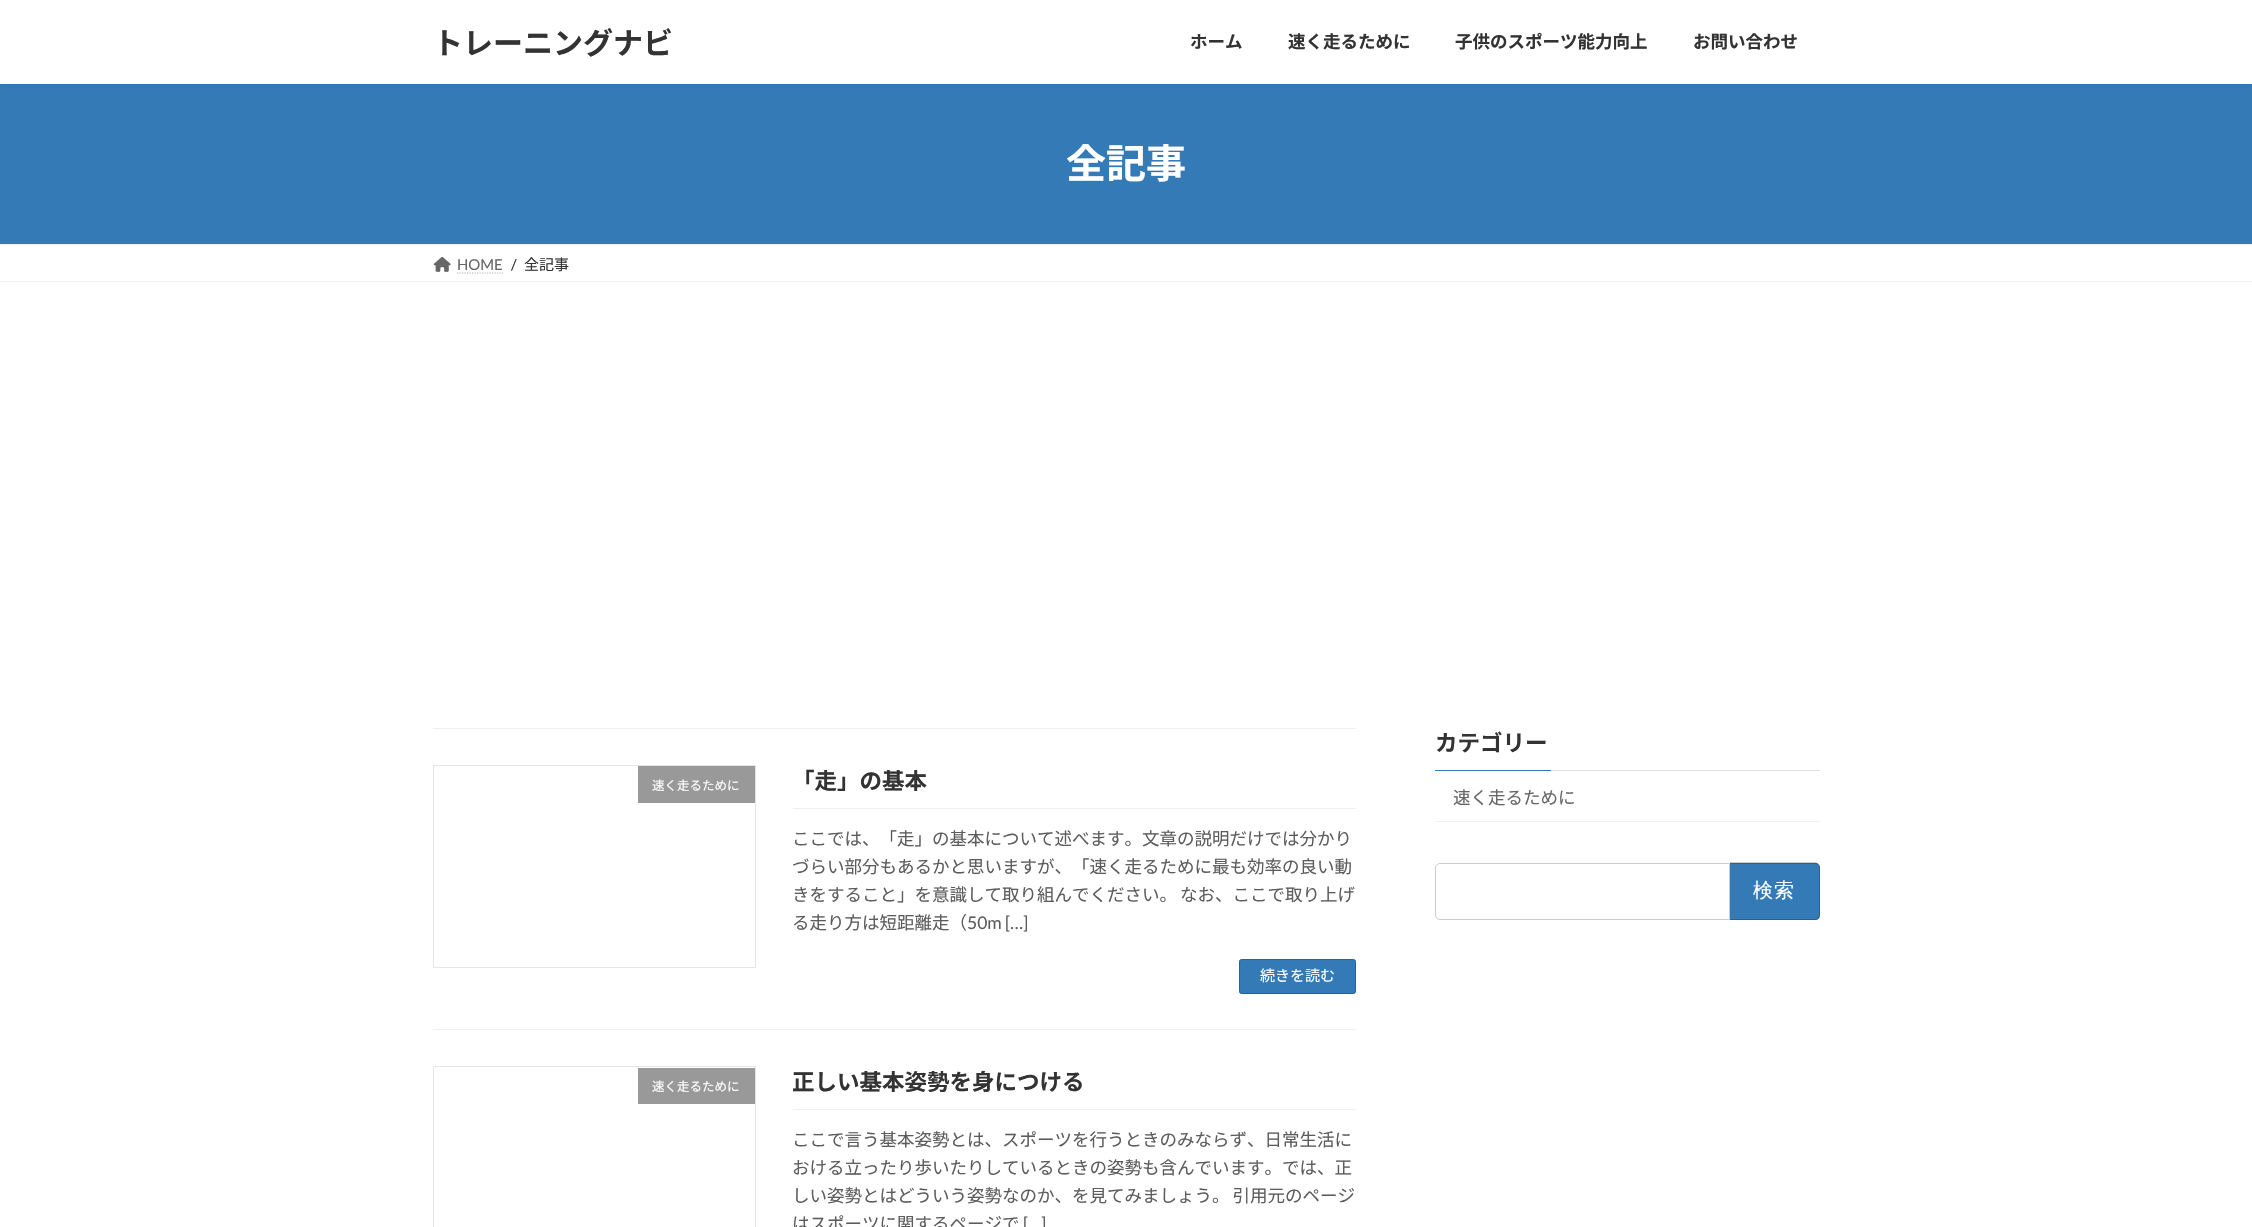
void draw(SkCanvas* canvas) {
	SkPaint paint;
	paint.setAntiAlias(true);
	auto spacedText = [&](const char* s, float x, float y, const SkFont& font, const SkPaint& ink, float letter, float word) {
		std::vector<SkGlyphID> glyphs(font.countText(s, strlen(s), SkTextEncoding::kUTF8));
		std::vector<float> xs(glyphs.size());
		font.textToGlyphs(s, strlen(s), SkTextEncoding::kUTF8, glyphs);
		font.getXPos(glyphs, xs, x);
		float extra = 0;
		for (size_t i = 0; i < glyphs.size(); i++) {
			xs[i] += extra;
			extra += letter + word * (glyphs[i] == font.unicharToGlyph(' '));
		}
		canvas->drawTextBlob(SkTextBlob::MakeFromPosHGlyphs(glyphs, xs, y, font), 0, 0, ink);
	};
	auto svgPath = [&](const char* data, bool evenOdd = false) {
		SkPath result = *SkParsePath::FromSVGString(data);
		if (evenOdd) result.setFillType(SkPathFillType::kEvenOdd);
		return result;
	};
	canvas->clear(0xffffffff);
	paint.setColor(0xff337ab7);
	canvas->drawRect(SkRect::MakeXYWH(0, 84, 2252, 160), paint);
	paint.setColor(0x0d000000);
	paint.setMaskFilter(SkMaskFilter::MakeBlur(kNormal_SkBlurStyle, 2));
	canvas->drawRect(SkRect::MakeXYWH(0, 1, 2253, 84), paint);
	paint.setMaskFilter(nullptr);
	paint.setColor(0xffffffff);
	canvas->drawRect(SkRect::MakeXYWH(0, 0, 2252, 84), paint);
	SkFont f1(fontMgr->matchFamilyStyle("Noto Sans JP", SkFontStyle::Bold()), 30);
	f1.setSubpixel(true);
	paint.setColor(0xff333333);
	canvas->drawString("トレーニングナビ", 433, 54, f1, paint);
	SkFont f2(fontMgr->matchFamilyStyle("Noto Sans JP", SkFontStyle::Bold()), 17.5);
	f2.setSubpixel(true);
	canvas->drawString("ホーム", 1190, 48, f2, paint);
	canvas->drawString("速く走るために", 1288, 48, f2, paint);
	canvas->drawString("子供のスポーツ能力向上", 1455, 48, f2, paint);
	canvas->drawString("お問い合わせ", 1693, 48, f2, paint);
	SkFont f3(fontMgr->matchFamilyStyle("Noto Sans JP", SkFontStyle::Bold()), 40);
	f3.setSubpixel(true);
	paint.setColor(0xffffffff);
	canvas->drawString("全記事", 1066, 178, f3, paint);
	paint.setColor(0xfff0f0f0);
	canvas->drawRect(SkRect::MakeXYWH(0, 244, 2252, 1), paint);
	canvas->drawRect(SkRect::MakeXYWH(0, 281, 2252, 1), paint);
	canvas->drawImageRect(SkImages::DeferredFromEncodedData(SkData::MakeFromFileName("img1.png")), SkRect::MakeXYWH(433, 256, 18, 16), SkSamplingOptions());
	SkFont f4(fontMgr->matchFamilyStyle("Lato", SkFontStyle::Normal()), 15);
	f4.setSubpixel(true);
	paint.setColor(0xff666666);
	canvas->drawString("HOME", 457, 270, f4, paint);
	paint.setStroke(true);
	paint.setStrokeWidth(1.2);
	paint.setColor(0xffb3b3b3);
	paint.setPathEffect(SkDashPathEffect::Make({{1.25f, 1.25f}}, 0));
	canvas->drawPath(svgPath("M457 273H503"), paint);
	paint.setPathEffect(nullptr);
	paint.setStroke(false);
	paint.setColor(0xff333333);
	canvas->drawString("/", 511, 270, f4, paint);
	SkFont f5(fontMgr->matchFamilyStyle("Noto Sans JP", SkFontStyle::Normal()), 15);
	f5.setSubpixel(true);
	canvas->drawString("全記事", 524, 270, f5, paint);
	paint.setColor(0xfff0f0f0);
	canvas->drawRect(SkRect::MakeXYWH(433, 728, 923, 1), paint);
	canvas->drawRect(SkRect::MakeXYWH(433, 1029, 923, 1), paint);
	paint.setStroke(true);
	paint.setStrokeWidth(1);
	paint.setColor(0xffe5e5e5);
	canvas->drawRect(SkRect::MakeXYWH(433.5, 765.5, 322, 202), paint);
	paint.setStroke(false);
	paint.setColor(0xff999999);
	canvas->drawRect(SkRect::MakeXYWH(638, 766, 117, 37), paint);
	SkFont f6(fontMgr->matchFamilyStyle("Noto Sans JP", SkFontStyle::Normal()), 12.5);
	f6.setSubpixel(true);
	paint.setColor(0xffffffff);
	canvas->drawString("速く走るために", 652, 790, f6, paint);
	paint.setColor(0xfff0f0f0);
	canvas->drawRect(SkRect::MakeXYWH(793, 808, 563, 1), paint);
	SkFont f7(fontMgr->matchFamilyStyle("Noto Sans JP", SkFontStyle::Bold()), 22.5);
	f7.setSubpixel(true);
	paint.setColor(0xff333333);
	canvas->drawString("「走」の基本", 792, 789, f7, paint);
	SkFont f8(fontMgr->matchFamilyStyle("Noto Sans JP", SkFontStyle::Normal()), 17.5);
	f8.setSubpixel(true);
	paint.setColor(0xff5c5c5c);
	canvas->drawString("ここでは、「走」の基本について述べます。文章の説明だけでは分かり", 792, 845, f8, paint);
	canvas->drawString("づらい部分もあるかと思いますが、「速く走るために最も効率の良い動", 792, 873, f8, paint);
	spacedText("きをすること」を意識して取り組んでください。 なお、ここで取り上げ", 792, 901, f8, paint, 0, -1);
	canvas->drawString("る走り方は短距離走（", 792, 929, f8, paint);
	SkFont f9(fontMgr->matchFamilyStyle("Lato", SkFontStyle::Normal()), 17.5);
	f9.setSubpixel(true);
	canvas->drawString("50m […]", 967, 929, f9, paint);
	paint.setColor(0xff337ab7);
	canvas->drawRoundRect(SkRect::MakeXYWH(1239.5, 959.5, 116, 34), 2, 2, paint);
	paint.setStroke(true);
	paint.setColor(0xff296292);
	canvas->drawRoundRect(SkRect::MakeXYWH(1239.5, 959.5, 116, 34), 2, 2, paint);
	paint.setStroke(false);
	paint.setColor(0xffffffff);
	canvas->drawString("続きを読む", 1260, 981, f5, paint);
	paint.setStroke(true);
	paint.setColor(0xffe5e5e5);
	canvas->drawRect(SkRect::MakeXYWH(433.5, 1066.5, 322, 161), paint);
	paint.setStroke(false);
	paint.setColor(0xff999999);
	canvas->drawRect(SkRect::MakeXYWH(638, 1068, 117, 36), paint);
	paint.setColor(0xffffffff);
	canvas->drawString("速く走るために", 652, 1091, f6, paint);
	paint.setColor(0xfff0f0f0);
	canvas->drawRect(SkRect::MakeXYWH(793, 1109, 563, 1), paint);
	paint.setColor(0xff333333);
	canvas->drawString("正しい基本姿勢を身につける", 792, 1090, f7, paint);
	paint.setColor(0xff5c5c5c);
	canvas->drawString("ここで言う基本姿勢とは、スポーツを行うときのみならず、日常生活に", 792, 1146, f8, paint);
	canvas->drawString("おける立ったり歩いたりしているときの姿勢も含んでいます。では、正", 792, 1174, f8, paint);
	spacedText("しい姿勢とはどういう姿勢なのか、を見てみましょう。 引用元のページ", 792, 1202, f8, paint, 0, -1);
	canvas->drawString("はスポーツに関するページで", 792, 1230, f8, paint);
	canvas->drawString("[…]", 1023, 1230, f9, paint);
	paint.setColor(0xffe0e0e0);
	canvas->drawRect(SkRect::MakeXYWH(1551, 770, 269, 1), paint);
	paint.setColor(0xff333333);
	canvas->drawString("カテゴリー", 1435, 751, f7, paint);
	paint.setColor(0xff337ab7);
	canvas->drawRect(SkRect::MakeXYWH(1435, 770, 116, 1), paint);
	paint.setColor(0xfff0f0f0);
	canvas->drawRect(SkRect::MakeXYWH(1435, 821, 385, 1), paint);
	paint.setColor(0xff666666);
	canvas->drawString("速く走るために", 1453, 804, f8, paint);
	paint.setStroke(true);
	paint.setColor(0xffcccccc);
	canvas->drawPath(svgPath("M1440 863.5H1729.5V919.5H1440C1437.5 919.5 1435.5 917.5 1435.5 915V868C1435.5 865.5 1437.5 863.5 1440 863.5Z"), paint);
	paint.setStroke(false);
	paint.setColor(0xff337ab7);
	canvas->drawPath(svgPath("M1730 863H1815C1818 863 1820 865 1820 868V915C1820 918 1818 920 1815 920H1730Z"), paint);
	paint.setColor(0x33000000);
	canvas->drawPath(svgPath("M1730 862H1815C1818 862 1820 865 1820 868V915C1820 918 1818 920 1815 920H1730ZM1730 864H1815C1817 864 1819 865 1819 868V915C1819 917 1817 919 1815 919H1730Z", true), paint);
	SkFont f10(fontMgr->matchFamilyStyle("WenQuanYi Zen Hei", SkFontStyle(500, SkFontStyle::kNormal_Width, SkFontStyle::kUpright_Slant)), 20);
	f10.setSubpixel(true);
	paint.setColor(0xffffffff);
	spacedText("検索", 1753, 897, f10, paint, 1, 0);
}
